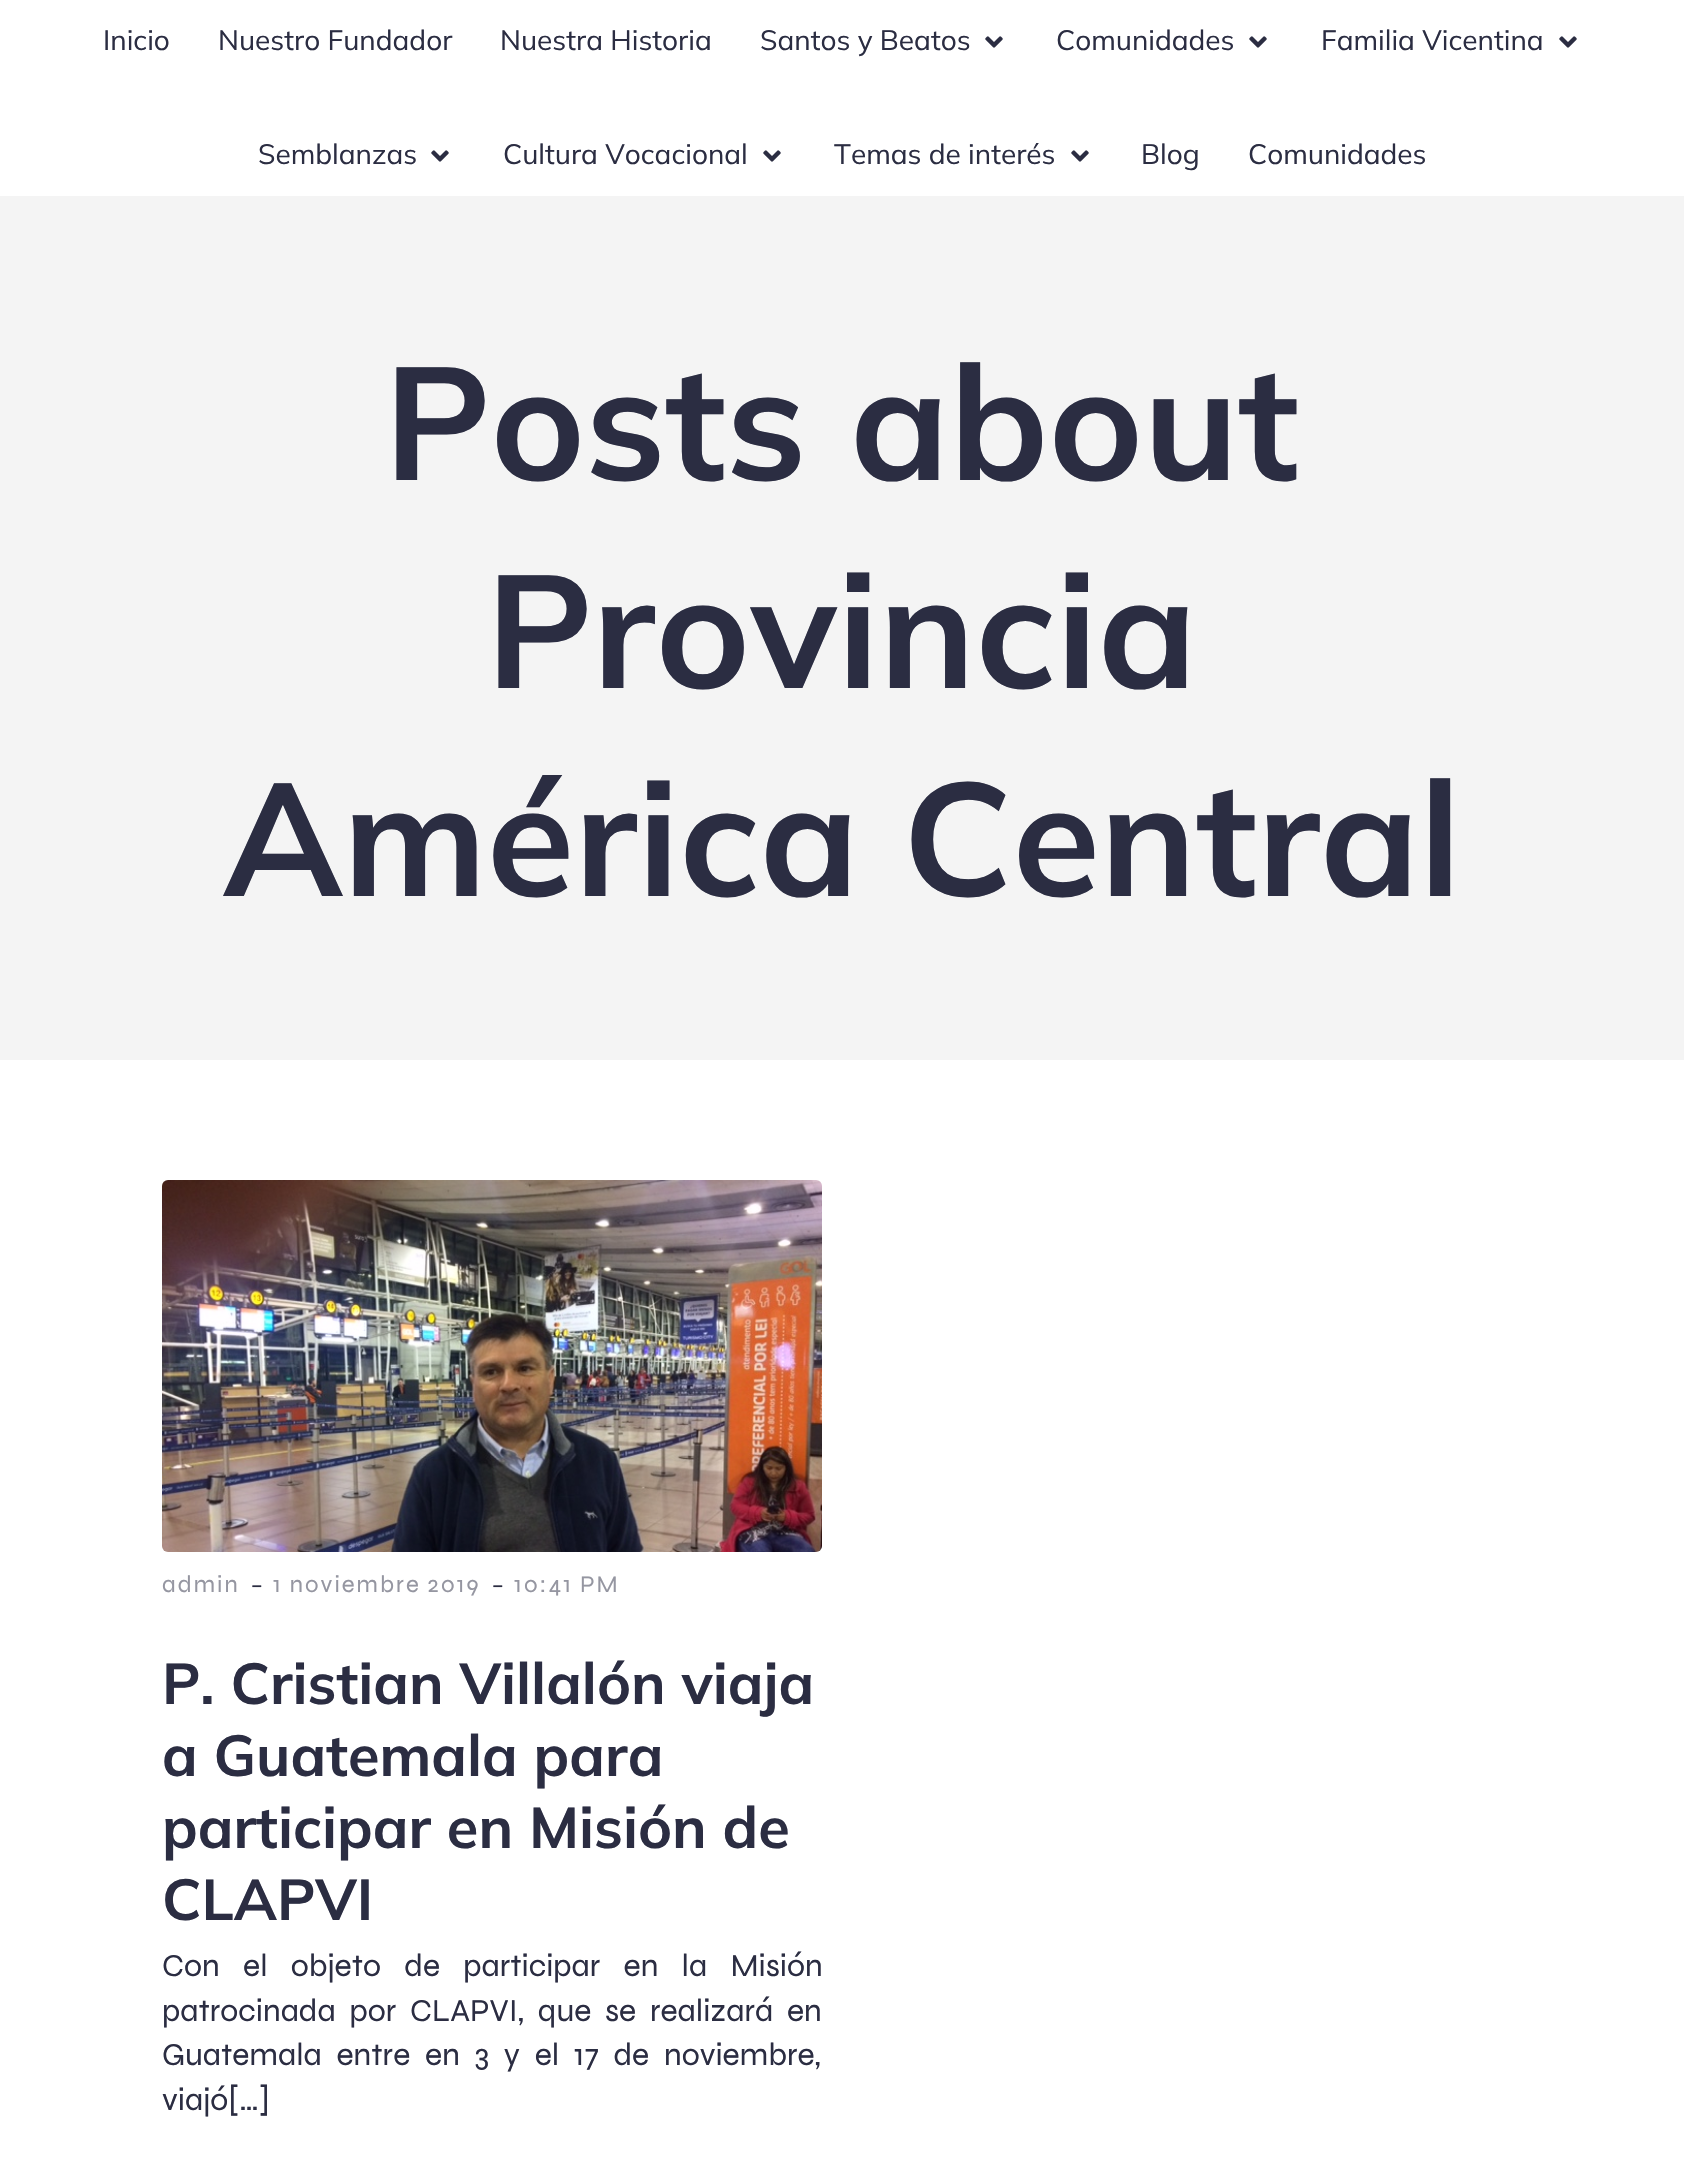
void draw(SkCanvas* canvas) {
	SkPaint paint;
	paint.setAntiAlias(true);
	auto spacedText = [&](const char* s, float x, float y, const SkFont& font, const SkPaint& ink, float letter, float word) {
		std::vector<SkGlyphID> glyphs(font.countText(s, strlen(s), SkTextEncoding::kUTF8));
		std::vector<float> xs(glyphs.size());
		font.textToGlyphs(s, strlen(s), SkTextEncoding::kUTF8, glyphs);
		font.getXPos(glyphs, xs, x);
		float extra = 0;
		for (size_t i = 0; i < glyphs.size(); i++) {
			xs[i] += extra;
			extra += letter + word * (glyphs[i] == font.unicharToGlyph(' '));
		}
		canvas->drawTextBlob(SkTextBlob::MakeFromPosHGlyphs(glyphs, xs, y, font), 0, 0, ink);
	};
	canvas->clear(0xffffffff);
	SkFont f1(fontMgr->matchFamilyStyle("Mulish", SkFontStyle::Normal()), 28);
	f1.setSubpixel(true);
	paint.setColor(0xff2b2d42);
	canvas->drawString("Inicio", 103, 50, f1, paint);
	canvas->drawString("Nuestro Fundador", 218, 50, f1, paint);
	canvas->drawString("Nuestra Historia", 500, 50, f1, paint);
	canvas->drawString("Santos y Beatos", 760, 50, f1, paint);
	canvas->drawImageRect(SkImages::DeferredFromEncodedData(SkData::MakeFromFileName("img1.png")), SkRect::MakeXYWH(985, 36, 18, 12), SkSamplingOptions());
	canvas->drawString("Comunidades", 1056, 50, f1, paint);
	canvas->drawImageRect(SkImages::DeferredFromEncodedData(SkData::MakeFromFileName("img1.png")), SkRect::MakeXYWH(1249, 36, 18, 12), SkSamplingOptions());
	canvas->drawString("Familia Vicentina", 1321, 50, f1, paint);
	canvas->drawImageRect(SkImages::DeferredFromEncodedData(SkData::MakeFromFileName("img1.png")), SkRect::MakeXYWH(1559, 36, 18, 12), SkSamplingOptions());
	canvas->drawString("Semblanzas", 258, 164, f1, paint);
	canvas->drawImageRect(SkImages::DeferredFromEncodedData(SkData::MakeFromFileName("img1.png")), SkRect::MakeXYWH(431, 150, 18, 12), SkSamplingOptions());
	canvas->drawString("Cultura Vocacional", 503, 164, f1, paint);
	canvas->drawImageRect(SkImages::DeferredFromEncodedData(SkData::MakeFromFileName("img1.png")), SkRect::MakeXYWH(763, 150, 18, 12), SkSamplingOptions());
	canvas->drawString("Temas de interés", 834, 164, f1, paint);
	canvas->drawImageRect(SkImages::DeferredFromEncodedData(SkData::MakeFromFileName("img1.png")), SkRect::MakeXYWH(1071, 150, 18, 12), SkSamplingOptions());
	canvas->drawString("Blog", 1141, 164, f1, paint);
	canvas->drawString("Comunidades", 1248, 164, f1, paint);
	paint.setColor(0xfff4f4f4);
	canvas->drawRect(SkRect::MakeXYWH(0, 196, 1684, 864), paint);
	SkFont f2(fontMgr->matchFamilyStyle("Mulish", SkFontStyle::Bold()), 160);
	f2.setSubpixel(true);
	paint.setColor(0xff2b2d42);
	canvas->drawString("Posts about", 384, 480, f2, paint);
	canvas->drawString("Provincia", 486, 688, f2, paint);
	canvas->drawString("América Central", 223, 896, f2, paint);
	canvas->drawImageRect(SkImages::DeferredFromEncodedData(SkData::MakeFromFileName("img2.png")), SkRect::MakeXYWH(162, 1180, 660, 372), SkSamplingOptions());
	SkFont f3(fontMgr->matchFamilyStyle("Syne", SkFontStyle::Normal()), 24);
	f3.setSubpixel(true);
	paint.setColor(0xff9596a1);
	spacedText("admin", 162, 1592, f3, paint, 2, 0);
	SkFont f4(fontMgr->matchFamilyStyle("Mulish", SkFontStyle(300, SkFontStyle::kNormal_Width, SkFontStyle::kUpright_Slant)), 32);
	f4.setSubpixel(true);
	paint.setColor(0xff2b2d42);
	canvas->drawString("-", 250, 1595, f4, paint);
	paint.setColor(0xff9596a1);
	spacedText("1 noviembre 2019", 273, 1592, f3, paint, 2, 0);
	paint.setColor(0xff2b2d42);
	canvas->drawString("-", 491, 1595, f4, paint);
	paint.setColor(0xff9596a1);
	spacedText("10:41 PM", 514, 1592, f3, paint, 2, 0);
	SkFont f5(fontMgr->matchFamilyStyle("Mulish", SkFontStyle::Bold()), 57.6);
	f5.setSubpixel(true);
	paint.setColor(0xff2b2d42);
	canvas->drawString("P. Cristian Villalón viaja", 162, 1704, f5, paint);
	canvas->drawString("a Guatemala para", 162, 1776, f5, paint);
	canvas->drawString("participar en Misión de", 162, 1848, f5, paint);
	canvas->drawString("CLAPVI", 162, 1920, f5, paint);
	SkFont f6(fontMgr->matchFamilyStyle("Syne", SkFontStyle::Normal()), 32);
	f6.setSubpixel(true);
	spacedText("Con el objeto de participar en la Misión", 162, 1976, f6, paint, 0, 16.5);
	spacedText("patrocinada por CLAPVI, que se realizará en", 162, 2021, f6, paint, 0, 7);
	spacedText("Guatemala entre en 3 y el 17 de noviembre,", 162, 2065, f6, paint, 0, 8);
	canvas->drawString("viajó[…]", 162, 2110, f6, paint);
}
